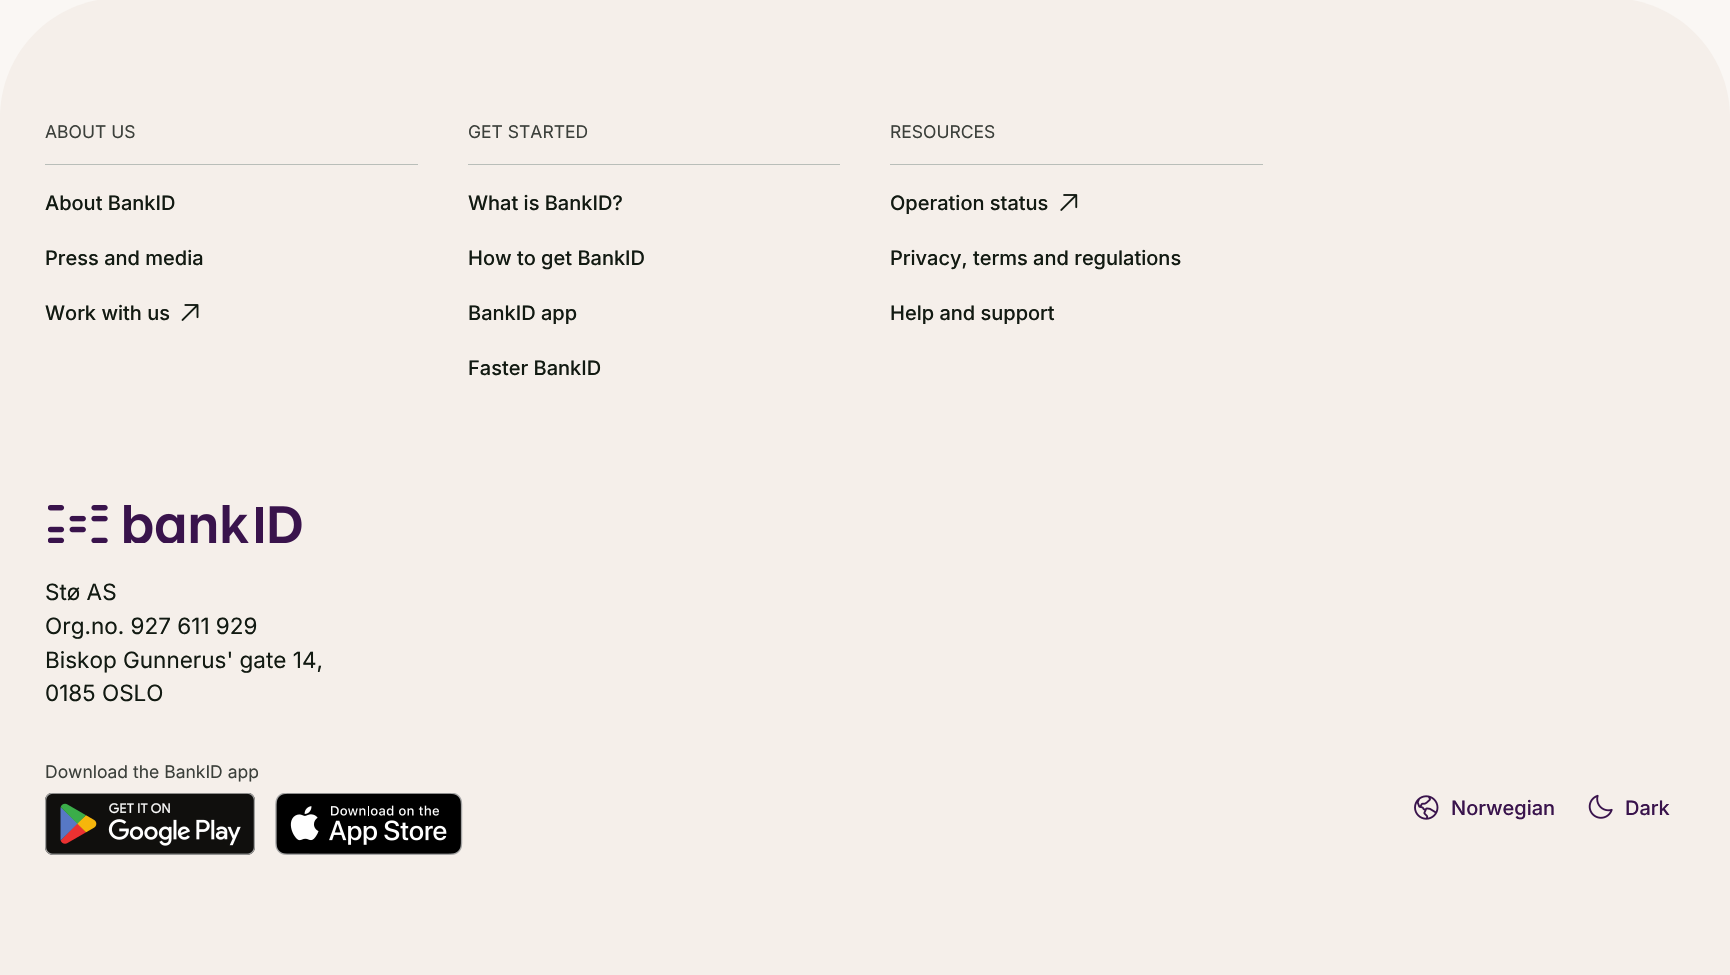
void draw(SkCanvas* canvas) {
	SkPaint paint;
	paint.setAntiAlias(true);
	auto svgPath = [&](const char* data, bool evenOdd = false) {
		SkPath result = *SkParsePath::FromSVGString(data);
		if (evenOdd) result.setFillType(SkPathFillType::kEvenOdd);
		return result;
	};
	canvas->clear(0xfffaf7f4);
	paint.setColor(0xfff5efea);
	canvas->drawPath(svgPath("M120-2H1610C1676.5-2 1730 51.5 1730 118V975H0V118C0 51.5 53.5-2 120-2Z"), paint);
	SkFont f1(fontMgr->matchFamilyStyle("Inter", SkFontStyle::Normal()), 17.5);
	f1.setSubpixel(true);
	paint.setColor(0xff3c403b);
	canvas->drawString("ABOUT US", 45, 138, f1, paint);
	paint.setColor(0xffb9beb9);
	canvas->drawRect(SkRect::MakeXYWH(45, 164, 373, 1), paint);
	SkFont f2(fontMgr->matchFamilyStyle("Inter", SkFontStyle(500, SkFontStyle::kNormal_Width, SkFontStyle::kUpright_Slant)), 20);
	f2.setSubpixel(true);
	paint.setColor(0xff121a12);
	canvas->drawString("About BankID", 45, 210, f2, paint);
	canvas->drawString("Press and media", 45, 265, f2, paint);
	canvas->drawString("Work with us", 45, 320, f2, paint);
	canvas->drawImageRect(SkImages::DeferredFromEncodedData(SkData::MakeFromFileName("img1.png")), SkRect::MakeXYWH(181, 304, 18, 17), SkSamplingOptions());
	paint.setColor(0xff3c403b);
	canvas->drawString("GET STARTED", 468, 138, f1, paint);
	paint.setColor(0xffb9beb9);
	canvas->drawRect(SkRect::MakeXYWH(468, 164, 372, 1), paint);
	paint.setColor(0xff121a12);
	canvas->drawString("What is BankID?", 468, 210, f2, paint);
	canvas->drawString("How to get BankID", 468, 265, f2, paint);
	canvas->drawString("BankID app", 468, 320, f2, paint);
	canvas->drawString("Faster BankID", 468, 375, f2, paint);
	paint.setColor(0xff3c403b);
	canvas->drawString("RESOURCES", 890, 138, f1, paint);
	paint.setColor(0xffb9beb9);
	canvas->drawRect(SkRect::MakeXYWH(890, 164, 373, 1), paint);
	paint.setColor(0xff121a12);
	canvas->drawString("Operation status", 890, 210, f2, paint);
	canvas->drawImageRect(SkImages::DeferredFromEncodedData(SkData::MakeFromFileName("img2.png")), SkRect::MakeXYWH(1060, 194, 18, 17), SkSamplingOptions());
	canvas->drawString("Privacy, terms and regulations", 890, 265, f2, paint);
	canvas->drawString("Help and support", 890, 320, f2, paint);
	canvas->drawImageRect(SkImages::DeferredFromEncodedData(SkData::MakeFromFileName("img3.png")), SkRect::MakeXYWH(48, 505, 254, 38), SkSamplingOptions());
	SkFont f3(fontMgr->matchFamilyStyle("Inter", SkFontStyle::Normal()), 22.5);
	f3.setSubpixel(true);
	canvas->drawString("Stø AS", 45, 600, f3, paint);
	canvas->drawString("Org.no. 927 611 929", 45, 634, f3, paint);
	canvas->drawString("Biskop Gunnerus' gate 14,", 45, 668, f3, paint);
	canvas->drawString("0185 OSLO", 45, 701, f3, paint);
	paint.setColor(0xff3c403b);
	canvas->drawString("Download the BankID app", 45, 778, f1, paint);
	canvas->drawImageRect(SkImages::DeferredFromEncodedData(SkData::MakeFromFileName("img4.png")), SkRect::MakeXYWH(45, 793, 210, 62), SkSamplingOptions());
	canvas->drawImageRect(SkImages::DeferredFromEncodedData(SkData::MakeFromFileName("img5.png")), SkRect::MakeXYWH(275, 793, 188, 62), SkSamplingOptions());
	canvas->drawImageRect(SkImages::DeferredFromEncodedData(SkData::MakeFromFileName("img6.png")), SkRect::MakeXYWH(1414, 795, 25, 25), SkSamplingOptions());
	paint.setColor(0xff39134c);
	canvas->drawString("Norwegian", 1451, 815, f2, paint);
	canvas->drawImageRect(SkImages::DeferredFromEncodedData(SkData::MakeFromFileName("img7.png")), SkRect::MakeXYWH(1588, 794, 25, 25), SkSamplingOptions());
	canvas->drawString("Dark", 1625, 815, f2, paint);
}
